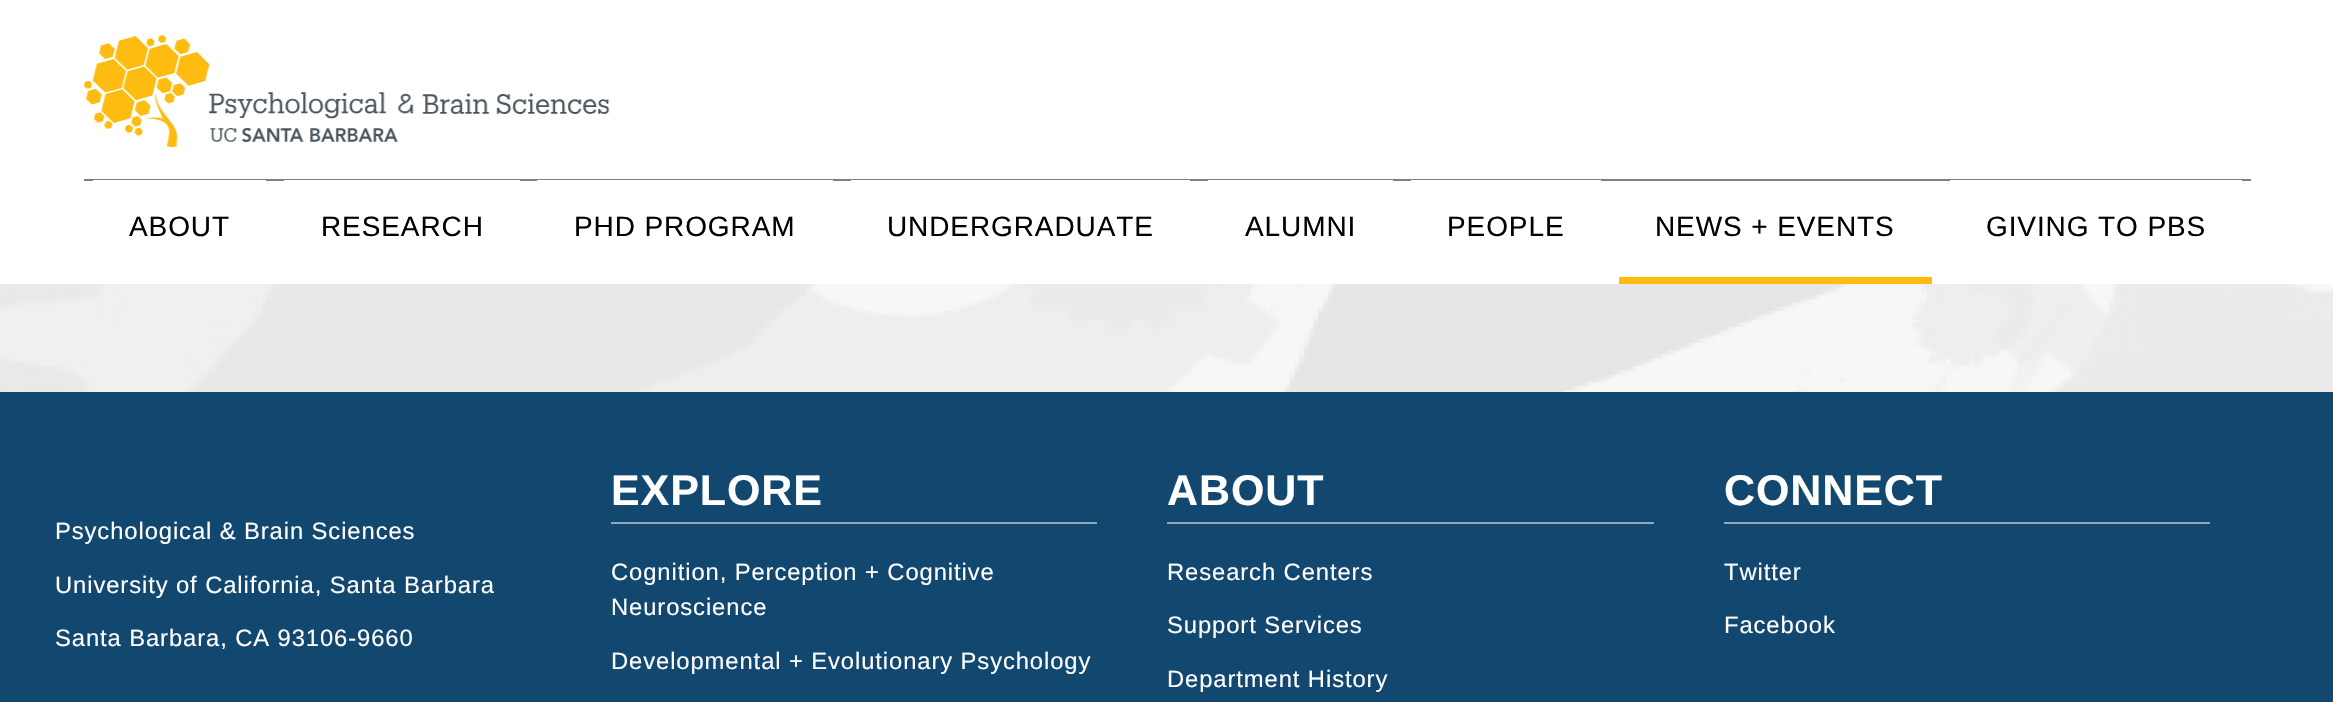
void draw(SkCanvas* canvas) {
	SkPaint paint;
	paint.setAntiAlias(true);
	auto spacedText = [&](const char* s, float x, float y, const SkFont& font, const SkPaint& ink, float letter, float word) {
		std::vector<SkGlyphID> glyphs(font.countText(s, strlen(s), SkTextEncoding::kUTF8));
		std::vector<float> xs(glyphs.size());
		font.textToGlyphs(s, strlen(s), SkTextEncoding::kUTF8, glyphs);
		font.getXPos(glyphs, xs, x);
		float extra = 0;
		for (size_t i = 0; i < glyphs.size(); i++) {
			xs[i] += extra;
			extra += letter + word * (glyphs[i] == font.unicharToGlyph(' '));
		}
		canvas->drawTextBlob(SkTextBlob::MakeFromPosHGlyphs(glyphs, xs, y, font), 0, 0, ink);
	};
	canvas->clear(0xffffffff);
	canvas->drawImageRect(SkImages::DeferredFromEncodedData(SkData::MakeFromFileName("img1.png")), SkRect::MakeXYWH(84, 35, 526, 112), SkSamplingOptions());
	paint.setColor(0xff808080);
	canvas->drawRect(SkRect::MakeXYWH(84, 179, 2167, 2), paint);
	paint.setColor(0xffffffff);
	canvas->drawRect(SkRect::MakeXYWH(93, 180, 173, 1), paint);
	SkFont f1(fontMgr->matchFamilyStyle("Liberation Sans", SkFontStyle::Normal()), 28);
	f1.setSubpixel(true);
	paint.setColor(0xff000000);
	spacedText("ABOUT", 129, 236, f1, paint, 0.9, 0);
	paint.setColor(0xffffffff);
	canvas->drawRect(SkRect::MakeXYWH(284, 180, 236, 1), paint);
	paint.setColor(0xff000000);
	spacedText("RESEARCH", 321, 236, f1, paint, 0.9, 0);
	paint.setColor(0xffffffff);
	canvas->drawRect(SkRect::MakeXYWH(537, 180, 296, 1), paint);
	paint.setColor(0xff000000);
	spacedText("PHD PROGRAM", 574, 236, f1, paint, 0.9, 0);
	paint.setColor(0xffffffff);
	canvas->drawRect(SkRect::MakeXYWH(851, 180, 339, 1), paint);
	paint.setColor(0xff000000);
	spacedText("UNDERGRADUATE", 887, 236, f1, paint, 0.9, 0);
	paint.setColor(0xffffffff);
	canvas->drawRect(SkRect::MakeXYWH(1208, 180, 185, 1), paint);
	paint.setColor(0xff000000);
	spacedText("ALUMNI", 1245, 236, f1, paint, 0.9, 0);
	paint.setColor(0xffffffff);
	canvas->drawRect(SkRect::MakeXYWH(1411, 180, 190, 1), paint);
	paint.setColor(0xff000000);
	spacedText("PEOPLE", 1447, 236, f1, paint, 0.9, 0);
	paint.setColor(0xfffebc11);
	canvas->drawRect(SkRect::MakeXYWH(1619, 277, 313, 7), paint);
	paint.setColor(0xff000000);
	spacedText("NEWS + EVENTS", 1655, 236, f1, paint, 0.9, 0);
	paint.setColor(0xffffffff);
	canvas->drawRect(SkRect::MakeXYWH(1950, 180, 292, 1), paint);
	paint.setColor(0xff000000);
	spacedText("GIVING TO PBS", 1986, 236, f1, paint, 0.9, 0);
	canvas->drawImageRect(SkImages::DeferredFromEncodedData(SkData::MakeFromFileName("img2.png")), SkRect::MakeXYWH(0, 284, 2333, 108), SkSamplingOptions());
	paint.setColor(0xff124770);
	canvas->drawRect(SkRect::MakeXYWH(0, 392, 2333, 310), paint);
	SkFont f2(fontMgr->matchFamilyStyle("Liberation Sans", SkFontStyle::Normal()), 23.8);
	f2.setSubpixel(true);
	paint.setColor(0xffffffff);
	spacedText("Psychological & Brain Sciences", 55, 539, f2, paint, 0.9, 0);
	spacedText("University of California, Santa Barbara", 55, 593, f2, paint, 0.9, 0);
	spacedText("Santa Barbara, CA 93106-9660", 55, 646, f2, paint, 0.9, 0);
	paint.setColor(0xff90a9bc);
	canvas->drawRect(SkRect::MakeXYWH(611, 522, 486, 2), paint);
	SkFont f3(fontMgr->matchFamilyStyle("Liberation Sans", SkFontStyle::Bold()), 43);
	f3.setSubpixel(true);
	paint.setColor(0xffffffff);
	spacedText("EXPLORE", 611, 505, f3, paint, 0.9, 0);
	spacedText("Cognition, Perception + Cognitive", 611, 580, f2, paint, 0.9, 0);
	spacedText("Neuroscience", 611, 615, f2, paint, 0.9, 0);
	spacedText("Developmental + Evolutionary Psychology", 611, 669, f2, paint, 0.9, 0);
	paint.setColor(0xff90a9bc);
	canvas->drawRect(SkRect::MakeXYWH(1167, 522, 487, 2), paint);
	paint.setColor(0xffffffff);
	spacedText("ABOUT", 1167, 505, f3, paint, 0.9, 0);
	spacedText("Research Centers", 1167, 580, f2, paint, 0.9, 0);
	spacedText("Support Services", 1167, 633, f2, paint, 0.9, 0);
	spacedText("Department History", 1167, 687, f2, paint, 0.9, 0);
	paint.setColor(0xff90a9bc);
	canvas->drawRect(SkRect::MakeXYWH(1724, 522, 486, 2), paint);
	paint.setColor(0xffffffff);
	spacedText("CONNECT", 1724, 505, f3, paint, 0.9, 0);
	spacedText("Twitter", 1724, 580, f2, paint, 0.9, 0);
	spacedText("Facebook", 1724, 633, f2, paint, 0.9, 0);
}
